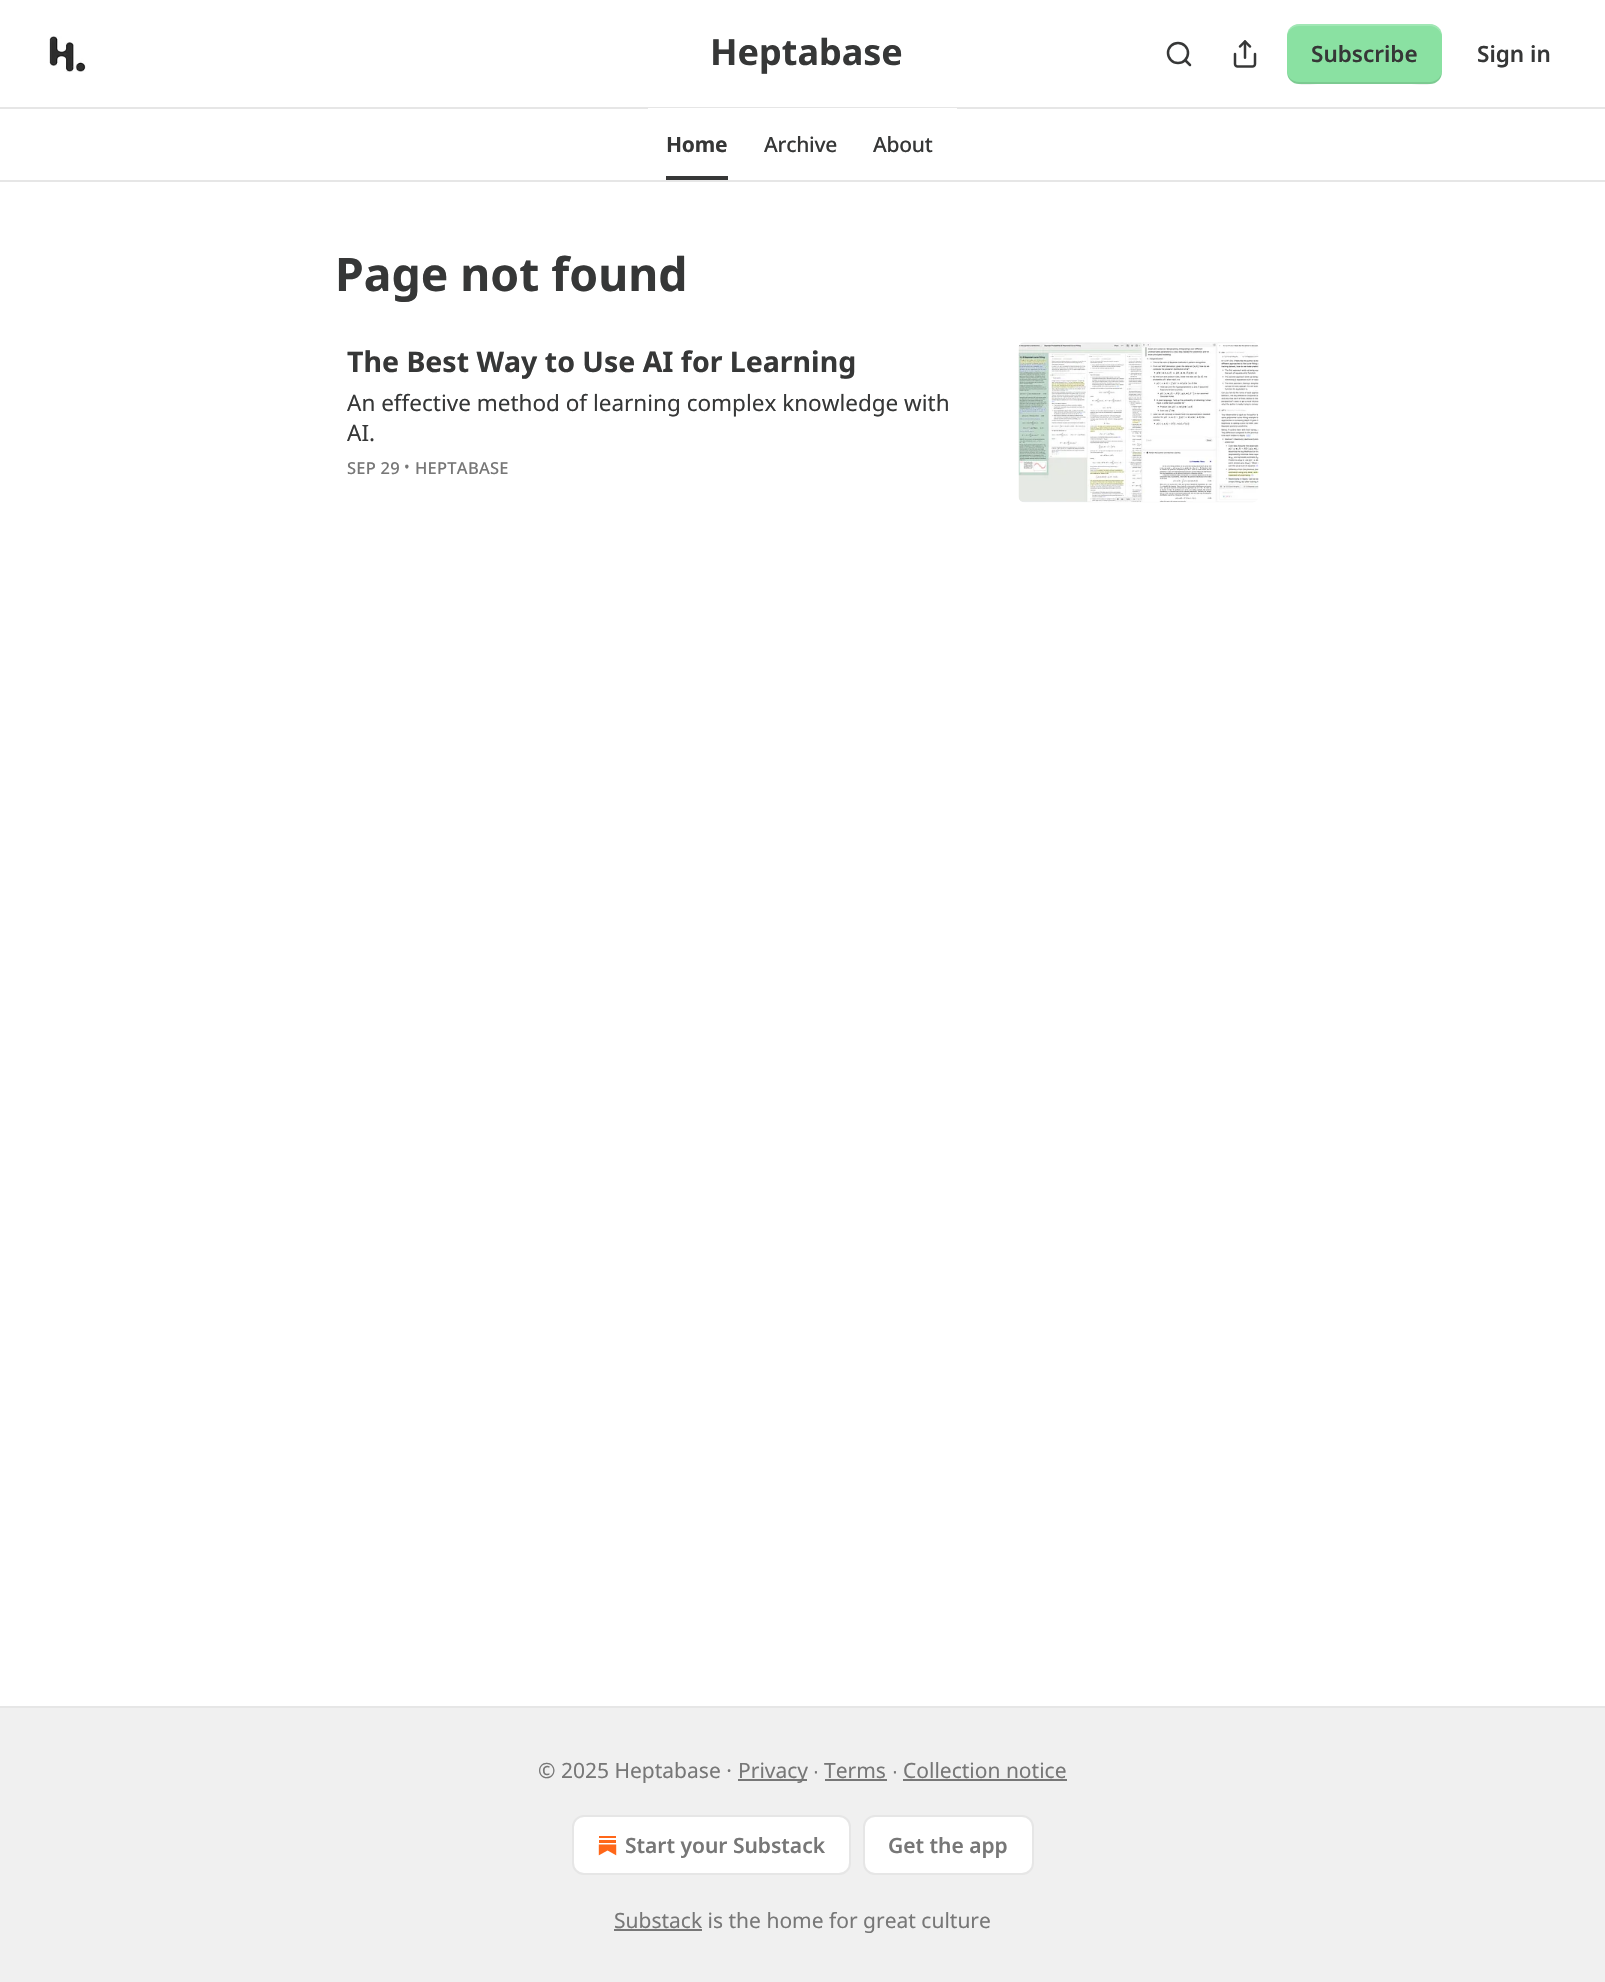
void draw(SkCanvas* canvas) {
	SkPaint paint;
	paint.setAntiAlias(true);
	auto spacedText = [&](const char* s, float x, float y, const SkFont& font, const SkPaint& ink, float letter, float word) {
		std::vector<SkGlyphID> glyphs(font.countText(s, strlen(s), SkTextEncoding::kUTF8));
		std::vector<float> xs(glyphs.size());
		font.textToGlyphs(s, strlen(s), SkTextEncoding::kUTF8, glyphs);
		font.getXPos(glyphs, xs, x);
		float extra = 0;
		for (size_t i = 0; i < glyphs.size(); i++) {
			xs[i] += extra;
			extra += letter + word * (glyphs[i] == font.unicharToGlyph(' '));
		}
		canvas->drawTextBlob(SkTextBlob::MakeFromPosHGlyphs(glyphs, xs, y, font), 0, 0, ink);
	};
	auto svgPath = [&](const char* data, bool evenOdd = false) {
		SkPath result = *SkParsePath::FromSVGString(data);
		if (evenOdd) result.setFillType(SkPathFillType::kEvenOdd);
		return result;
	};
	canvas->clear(0xffffffff);
	canvas->drawImageRect(SkImages::DeferredFromEncodedData(SkData::MakeFromFileName("img1.png")), SkRect::MakeXYWH(49, 36, 37, 36), SkSamplingOptions());
	SkFont f1(fontMgr->matchFamilyStyle("Noto Sans", SkFontStyle::Bold()), 36);
	f1.setSubpixel(true);
	paint.setColor(0xff363737);
	canvas->drawString("Heptabase", 710, 65, f1, paint);
	paint.setStroke(true);
	paint.setStrokeWidth(2.5);
	canvas->drawCircle(1178, 53, 10, paint);
	paint.setStrokeCap(SkPaint::kRound_Cap);
	paint.setStrokeJoin(SkPaint::kRound_Join);
	canvas->drawPath(svgPath("M1190 65L1185 60"), paint);
	canvas->drawImageRect(SkImages::DeferredFromEncodedData(SkData::MakeFromFileName("img2.png")), SkRect::MakeXYWH(1233, 40, 24, 28), SkSamplingOptions());
	paint.setStroke(false);
	paint.setColor(0xff8ae1a2);
	canvas->drawRoundRect(SkRect::MakeXYWH(1287, 24, 155, 60), 12, 12, paint);
	paint.setColor(0x1a000000);
	canvas->drawPath(svgPath("M1287 70C1287 89 1307 84 1321 84H1408C1422 84 1442 89 1442 70C1442 77 1436 82 1430 82H1299C1292 82 1287 77 1287 70Z"), paint);
	paint.setColor(0x33ffffff);
	canvas->drawPath(svgPath("M1299 26H1430C1436 26 1442 31 1442 38C1442 19 1422 24 1408 24H1321C1307 24 1287 19 1287 38C1287 31 1292 26 1299 26Z"), paint);
	SkFont f2(fontMgr->matchFamilyStyle("Noto Sans", SkFontStyle(600, SkFontStyle::kNormal_Width, SkFontStyle::kUpright_Slant)), 22.5);
	f2.setSubpixel(true);
	paint.setColor(0xff363737);
	canvas->drawString("Subscribe", 1311, 62, f2, paint);
	canvas->drawString("Sign in", 1477, 62, f2, paint);
	paint.setColor(0xffe6e6e6);
	canvas->drawRect(SkRect::MakeXYWH(0, 107, 1605, 2), paint);
	canvas->drawRect(SkRect::MakeXYWH(0, 180, 1605, 2), paint);
	paint.setColor(0xffffffff);
	canvas->drawRect(SkRect::MakeXYWH(648, 108, 309, 1), paint);
	paint.setColor(0xff363737);
	canvas->drawRect(SkRect::MakeXYWH(666, 176, 62, 4), paint);
	SkFont f3(fontMgr->matchFamilyStyle("Noto Sans", SkFontStyle::Bold()), 21);
	f3.setSubpixel(true);
	spacedText("Home", 666, 152, f3, paint, -0.25, 0);
	SkFont f4(fontMgr->matchFamilyStyle("Noto Sans", SkFontStyle(500, SkFontStyle::kNormal_Width, SkFontStyle::kUpright_Slant)), 21);
	f4.setSubpixel(true);
	spacedText("Archive", 764, 152, f4, paint, -0.25, 0);
	spacedText("About", 873, 152, f4, paint, -0.25, 0);
	SkFont f5(fontMgr->matchFamilyStyle("Noto Sans", SkFontStyle::Bold()), 46.25);
	f5.setSubpixel(true);
	canvas->drawString("Page not found", 335, 291, f5, paint);
	SkFont f6(fontMgr->matchFamilyStyle("Noto Sans", SkFontStyle::Bold()), 28.5);
	f6.setSubpixel(true);
	canvas->drawString("The Best Way to Use AI for Learning", 347, 372, f6, paint);
	SkFont f7(fontMgr->matchFamilyStyle("Noto Sans", SkFontStyle::Normal()), 22.5);
	f7.setSubpixel(true);
	canvas->drawString("An effective method of learning complex knowledge with", 347, 411, f7, paint);
	canvas->drawString("AI.", 347, 441, f7, paint);
	SkFont f8(fontMgr->matchFamilyStyle("Noto Sans", SkFontStyle(500, SkFontStyle::kNormal_Width, SkFontStyle::kUpright_Slant)), 16.5);
	f8.setSubpixel(true);
	paint.setColor(0xff777777);
	spacedText("SEP 29", 347, 474, f8, paint, 0.25, 0);
	SkFont f9(fontMgr->matchFamilyStyle("Noto Sans", SkFontStyle::Normal()), 15);
	f9.setSubpixel(true);
	spacedText("•", 404, 472, f9, paint, 0.25, 0);
	spacedText("HEPTABASE", 415, 474, f8, paint, 0.25, 0);
	canvas->drawImageRect(SkImages::DeferredFromEncodedData(SkData::MakeFromFileName("img3.png")), SkRect::MakeXYWH(1018, 342, 241, 161), SkSamplingOptions());
	paint.setColor(0xfff0f0f0);
	canvas->drawRect(SkRect::MakeXYWH(0, 1708, 1605, 274), paint);
	paint.setColor(0xffe6e6e6);
	canvas->drawRect(SkRect::MakeXYWH(0, 1706, 1605, 2), paint);
	SkFont f10(fontMgr->matchFamilyStyle("Noto Sans", SkFontStyle::Normal()), 21);
	f10.setSubpixel(true);
	paint.setColor(0xff777777);
	canvas->drawString("© 2025 Heptabase ·", 538, 1778, f10, paint);
	canvas->drawRect(SkRect::MakeXYWH(738, 1779, 69, 2), paint);
	canvas->drawString("Privacy", 738, 1778, f10, paint);
	SkFont f11(fontMgr->matchFamilyStyle("Liberation Sans", SkFontStyle::Normal()), 21);
	f11.setSubpixel(true);
	canvas->drawString("∙", 813, 1778, f11, paint);
	canvas->drawString("Terms", 824, 1778, f10, paint);
	canvas->drawRect(SkRect::MakeXYWH(825, 1779, 62, 2), paint);
	canvas->drawString("∙", 892, 1778, f11, paint);
	canvas->drawString("Collection notice", 903, 1778, f10, paint);
	canvas->drawRect(SkRect::MakeXYWH(903, 1779, 164, 2), paint);
	paint.setColor(0xffffffff);
	canvas->drawRoundRect(SkRect::MakeXYWH(573, 1816, 277, 58), 11, 11, paint);
	paint.setStroke(true);
	paint.setStrokeWidth(2);
	paint.setStrokeCap(SkPaint::kButt_Cap);
	paint.setStrokeJoin(SkPaint::kMiter_Join);
	paint.setColor(0xffe6e6e6);
	canvas->drawRoundRect(SkRect::MakeXYWH(573, 1816, 277, 58), 11, 11, paint);
	canvas->drawImageRect(SkImages::DeferredFromEncodedData(SkData::MakeFromFileName("img4.png")), SkRect::MakeXYWH(598, 1836, 19, 20), SkSamplingOptions());
	SkFont f12(fontMgr->matchFamilyStyle("Noto Sans", SkFontStyle(600, SkFontStyle::kNormal_Width, SkFontStyle::kUpright_Slant)), 21);
	f12.setSubpixel(true);
	paint.setStroke(false);
	paint.setColor(0xff777777);
	canvas->drawString("Start your Substack", 625, 1853, f12, paint);
	paint.setColor(0xffffffff);
	canvas->drawRoundRect(SkRect::MakeXYWH(864, 1816, 169, 58), 11, 11, paint);
	paint.setStroke(true);
	paint.setColor(0xffe6e6e6);
	canvas->drawRoundRect(SkRect::MakeXYWH(864, 1816, 169, 58), 11, 11, paint);
	paint.setStroke(false);
	paint.setColor(0xff777777);
	canvas->drawString("Get the app", 888, 1853, f12, paint);
	canvas->drawRect(SkRect::MakeXYWH(614, 1929, 88, 2), paint);
	canvas->drawString("Substack is the home for great culture", 614, 1928, f10, paint);
}
